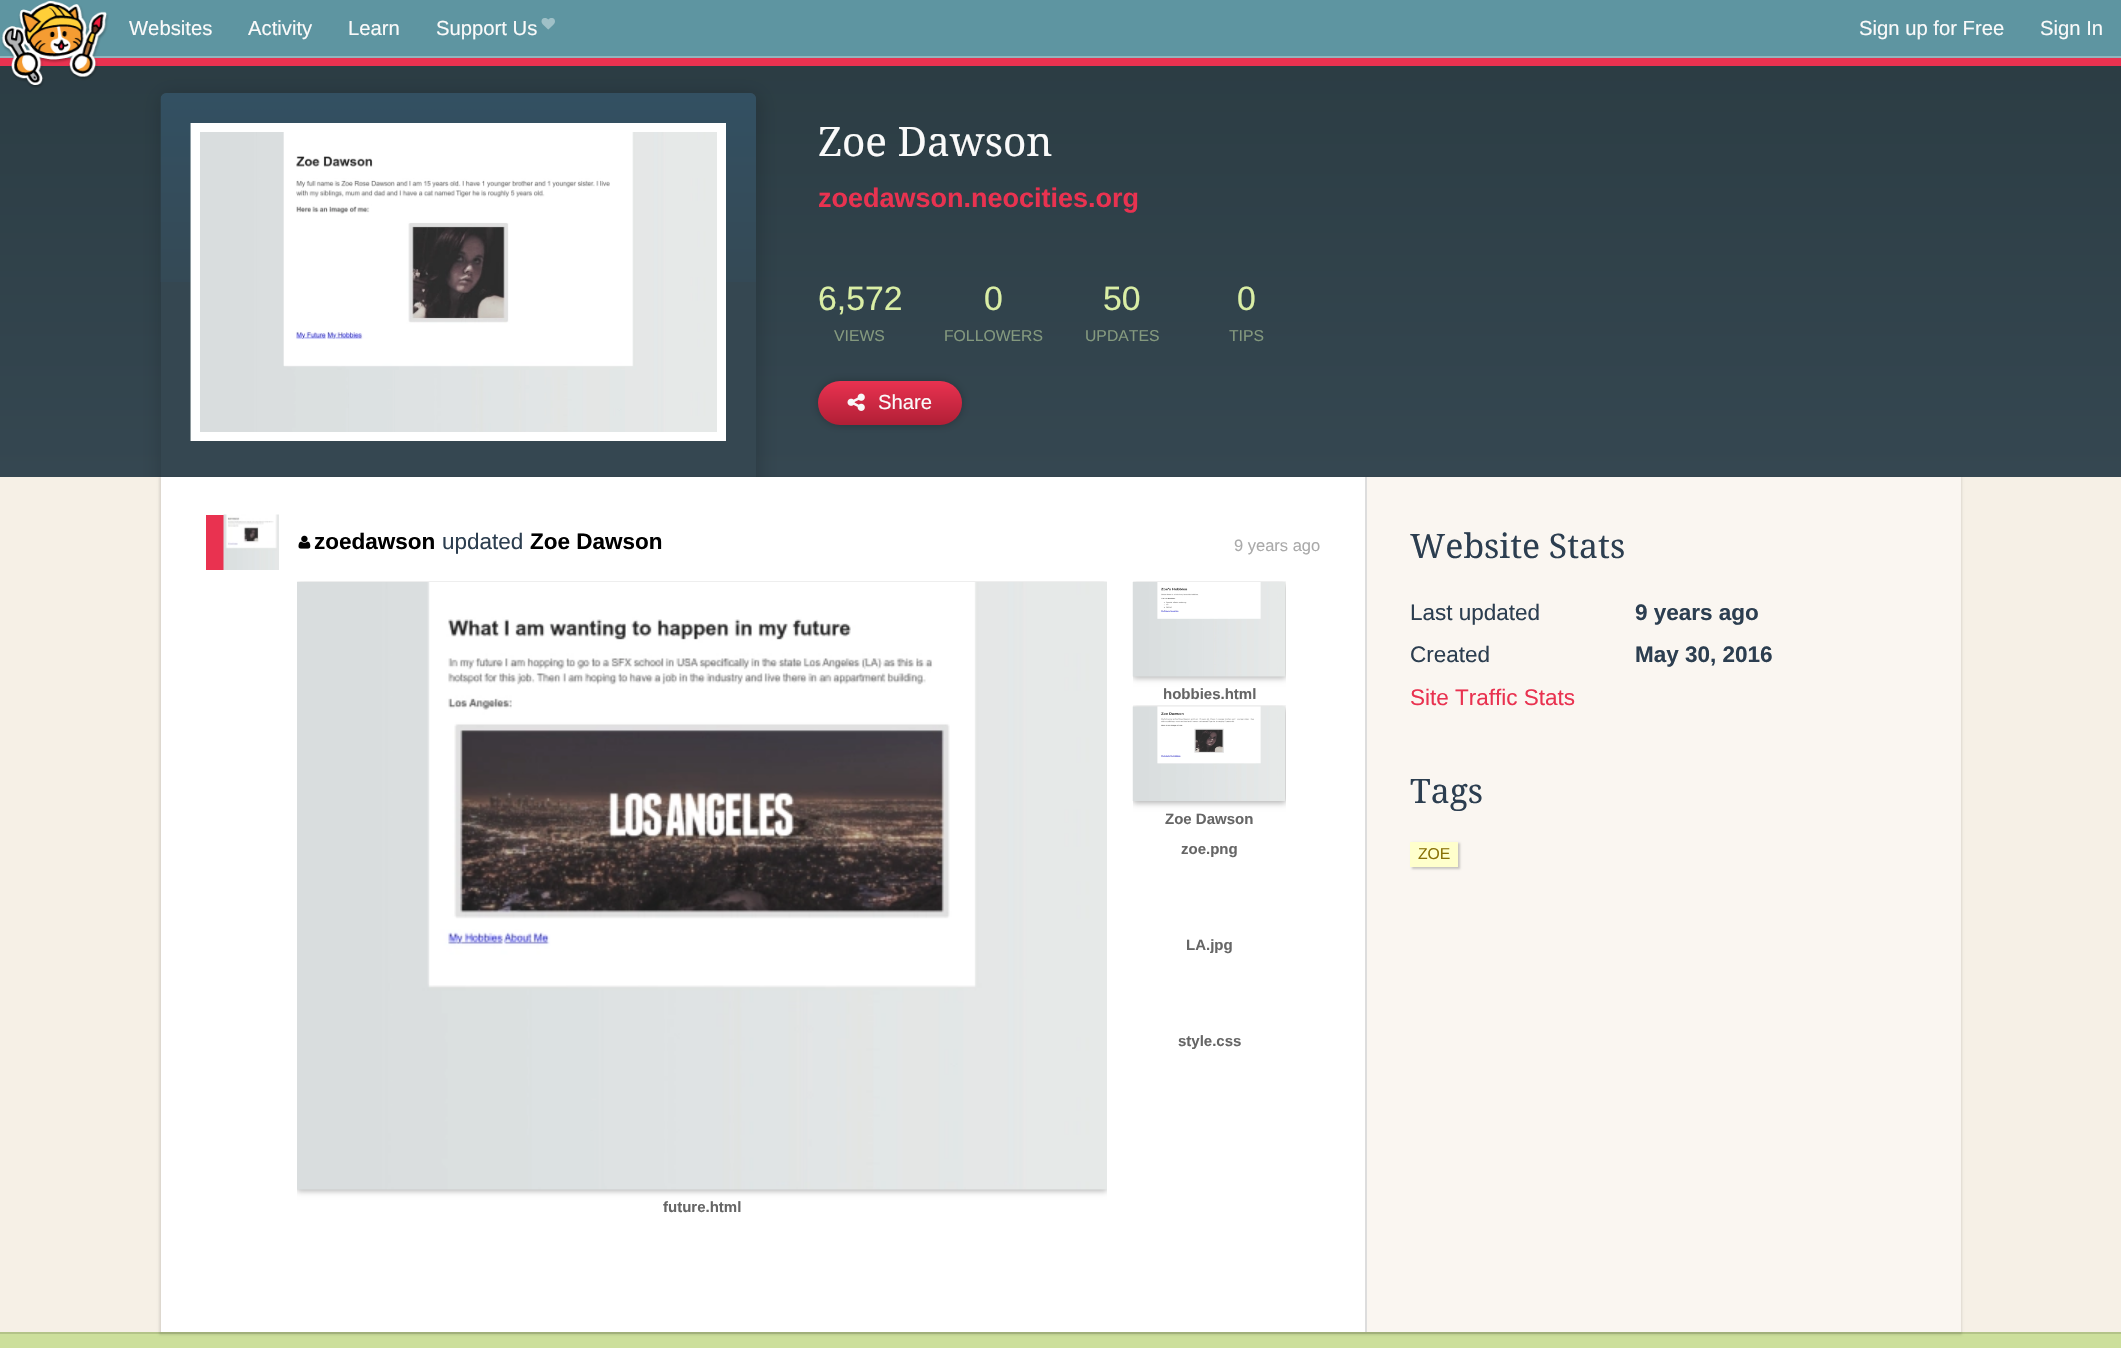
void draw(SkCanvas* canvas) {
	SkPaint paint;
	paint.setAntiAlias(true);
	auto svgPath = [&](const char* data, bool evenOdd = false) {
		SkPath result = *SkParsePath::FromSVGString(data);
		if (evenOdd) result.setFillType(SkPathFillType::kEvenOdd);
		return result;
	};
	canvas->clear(0xffccdf9b);
	paint.setColor(0xfff6f0e6);
	canvas->drawRect(SkRect::MakeXYWH(0, 477, 2121, 855), paint);
	{
		const SkColor colors[] = {0xff2b3c43, 0xff354751};
		const float stops[] = {0, 1};
		const SkPoint ends[] = {{1061, 33}, {1061, 477}};
		paint.setShader(SkGradientShader::MakeLinear(ends, colors, stops, 2, SkTileMode::kClamp));
		paint.setAlpha(255);
	}
	canvas->drawRect(SkRect::MakeXYWH(0, 66, 2121, 411), paint);
	paint.setShader(nullptr);
	paint.setColor(0xffb3c388);
	canvas->drawRect(SkRect::MakeXYWH(0, 1332, 2121, 2), paint);
	canvas->save();
	canvas->clipRect(SkRect::MakeXYWH(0, 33, 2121, 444));
	paint.setColor(0x26000000);
	paint.setMaskFilter(SkMaskFilter::MakeBlur(kNormal_SkBlurStyle, 9));
	canvas->drawRoundRect(SkRect::MakeXYWH(159, 93, 602, 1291), 9, 9, paint);
	paint.setMaskFilter(nullptr);
	canvas->restore();
	paint.setColor(0xffe93250);
	canvas->drawRect(SkRect::MakeXYWH(0, 58, 2121, 8), paint);
	paint.setColor(0xff5e95a1);
	canvas->drawRect(SkRect::MakeXYWH(0, 0, 2121, 56), paint);
	paint.setColor(0xff92b4bd);
	canvas->drawRect(SkRect::MakeXYWH(0, 56, 2121, 2), paint);
	canvas->drawImageRect(SkImages::DeferredFromEncodedData(SkData::MakeFromFileName("img1.png")), SkRect::MakeXYWH(1, 0, 108, 88), SkSamplingOptions());
	SkFont f1(fontMgr->matchFamilyStyle("Liberation Sans", SkFontStyle::Normal()), 20.25);
	f1.setSubpixel(true);
	paint.setColor(0xfffafafa);
	canvas->drawString("Websites", 129, 35, f1, paint);
	canvas->drawString("Activity", 248, 35, f1, paint);
	canvas->drawString("Learn", 348, 35, f1, paint);
	canvas->drawString("Support Us", 436, 35, f1, paint);
	canvas->drawImageRect(SkImages::DeferredFromEncodedData(SkData::MakeFromFileName("img2.png")), SkRect::MakeXYWH(541, 18, 14, 12), SkSamplingOptions());
	canvas->drawString("Sign up for Free", 1859, 35, f1, paint);
	canvas->drawString("Sign In", 2040, 35, f1, paint);
	paint.setColor(0xff354751);
	canvas->drawPath(svgPath("M167 93H750C753.5 93 756 95.5 756 99V477H161V99C161 95.5 163.5 93 167 93Z"), paint);
	canvas->drawImageRect(SkImages::DeferredFromEncodedData(SkData::MakeFromFileName("img3.png")), SkRect::MakeXYWH(160, 93, 596, 189), SkSamplingOptions());
	canvas->drawImageRect(SkImages::DeferredFromEncodedData(SkData::MakeFromFileName("img4.png")), SkRect::MakeXYWH(190, 123, 527, 318), SkSamplingOptions());
	paint.setStroke(true);
	paint.setStrokeWidth(9);
	paint.setColor(0xffffffff);
	canvas->drawRect(SkRect::MakeXYWH(195.5, 127.5, 526, 309), paint);
	SkFont f2(fontMgr->matchFamilyStyle("Droid Serif", SkFontStyle::Normal()), 40.5);
	f2.setSubpixel(true);
	paint.setStroke(false);
	paint.setColor(0xfffafafa);
	canvas->drawString("Zoe Dawson", 818, 156, f2, paint);
	SkFont f3(fontMgr->matchFamilyStyle("Liberation Sans", SkFontStyle::Bold()), 27);
	f3.setSubpixel(true);
	paint.setColor(0xffe93250);
	canvas->drawString("zoedawson.neocities.org", 818, 207, f3, paint);
	SkFont f4(fontMgr->matchFamilyStyle("Liberation Sans", SkFontStyle::Normal()), 33.75);
	f4.setSubpixel(true);
	paint.setColor(0xffdaeea5);
	canvas->drawString("6,572", 818, 310, f4, paint);
	SkFont f5(fontMgr->matchFamilyStyle("Liberation Sans", SkFontStyle::Normal()), 15.75);
	f5.setSubpixel(true);
	paint.setColor(0xff84997e);
	canvas->drawString("VIEWS", 834, 341, f5, paint);
	paint.setColor(0xffdaeea5);
	canvas->drawString("0", 984, 310, f4, paint);
	paint.setColor(0xff84997e);
	canvas->drawString("FOLLOWERS", 944, 341, f5, paint);
	paint.setColor(0xffdaeea5);
	canvas->drawString("50", 1103, 310, f4, paint);
	paint.setColor(0xff84997e);
	canvas->drawString("UPDATES", 1085, 341, f5, paint);
	paint.setColor(0xffdaeea5);
	canvas->drawString("0", 1237, 310, f4, paint);
	paint.setColor(0xff84997e);
	canvas->drawString("TIPS", 1229, 341, f5, paint);
	paint.setColor(0x40000000);
	paint.setMaskFilter(SkMaskFilter::MakeBlur(kNormal_SkBlurStyle, 4.5));
	canvas->drawRoundRect(SkRect::MakeXYWH(818, 381, 144, 44), 22, 22, paint);
	paint.setMaskFilter(nullptr);
	{
		const SkColor colors[] = {0xffe93250, 0xffb11f36};
		const float stops[] = {0, 1};
		const SkPoint ends[] = {{890, 381}, {890, 425}};
		paint.setShader(SkGradientShader::MakeLinear(ends, colors, stops, 2, SkTileMode::kClamp));
		paint.setAlpha(255);
	}
	canvas->drawRoundRect(SkRect::MakeXYWH(818, 381, 144, 44), 22, 22, paint);
	canvas->drawImageRect(SkImages::DeferredFromEncodedData(SkData::MakeFromFileName("img5.png")), SkRect::MakeXYWH(847, 393, 18, 18), SkSamplingOptions());
	paint.setShader(nullptr);
	paint.setColor(0xfffafafa);
	canvas->drawString("Share", 878, 409, f1, paint);
	paint.setColor(0x1a000000);
	paint.setMaskFilter(SkMaskFilter::MakeBlur(kNormal_SkBlurStyle, 1));
	canvas->drawRect(SkRect::MakeXYWH(159, 477, 1803, 858), paint);
	paint.setMaskFilter(nullptr);
	paint.setColor(0xfffaf6f1);
	canvas->drawRect(SkRect::MakeXYWH(1367, 477, 594, 855), paint);
	paint.setColor(0xffdddddd);
	canvas->drawRect(SkRect::MakeXYWH(1365, 477, 2, 855), paint);
	paint.setColor(0xffffffff);
	canvas->drawRect(SkRect::MakeXYWH(161, 477, 1204, 855), paint);
	paint.setColor(0xffe93250);
	canvas->drawRect(SkRect::MakeXYWH(206, 515, 18, 55), paint);
	canvas->drawImageRect(SkImages::DeferredFromEncodedData(SkData::MakeFromFileName("img6.png")), SkRect::MakeXYWH(223, 514, 56, 56), SkSamplingOptions());
	canvas->drawImageRect(SkImages::DeferredFromEncodedData(SkData::MakeFromFileName("img7.png")), SkRect::MakeXYWH(298, 535, 13, 14), SkSamplingOptions());
	SkFont f6(fontMgr->matchFamilyStyle("Liberation Sans", SkFontStyle::Bold()), 22.5);
	f6.setSubpixel(true);
	paint.setColor(0xff000000);
	canvas->drawString("zoedawson", 314, 549, f6, paint);
	SkFont f7(fontMgr->matchFamilyStyle("Liberation Sans", SkFontStyle::Normal()), 22.5);
	f7.setSubpixel(true);
	paint.setColor(0xff2c3e50);
	canvas->drawString("updated", 442, 549, f7, paint);
	paint.setColor(0xff000000);
	canvas->drawString("Zoe Dawson", 530, 549, f6, paint);
	SkFont f8(fontMgr->matchFamilyStyle("Liberation Sans", SkFontStyle::Normal()), 16.5);
	f8.setSubpixel(true);
	paint.setColor(0xffaaaaaa);
	canvas->drawString("9 years ago", 1234, 551, f8, paint);
	canvas->save();
	canvas->clipRect(SkRect::MakeXYWH(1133, 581, 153, 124));
	paint.setColor(0x4d000000);
	paint.setMaskFilter(SkMaskFilter::MakeBlur(kNormal_SkBlurStyle, 3));
	canvas->drawRect(SkRect::MakeXYWH(1133, 584, 153, 94), paint);
	paint.setMaskFilter(nullptr);
	canvas->restore();
	canvas->drawImageRect(SkImages::DeferredFromEncodedData(SkData::MakeFromFileName("img8.png")), SkRect::MakeXYWH(1132, 582, 154, 95), SkSamplingOptions());
	SkFont f9(fontMgr->matchFamilyStyle("Liberation Sans", SkFontStyle::Bold()), 15);
	f9.setSubpixel(true);
	paint.setColor(0xff666666);
	canvas->drawString("hobbies.html", 1163, 699, f9, paint);
	canvas->save();
	canvas->clipRect(SkRect::MakeXYWH(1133, 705, 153, 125));
	paint.setColor(0x4d000000);
	paint.setMaskFilter(SkMaskFilter::MakeBlur(kNormal_SkBlurStyle, 3));
	canvas->drawRect(SkRect::MakeXYWH(1133, 708, 153, 95), paint);
	paint.setMaskFilter(nullptr);
	canvas->restore();
	canvas->drawImageRect(SkImages::DeferredFromEncodedData(SkData::MakeFromFileName("img9.png")), SkRect::MakeXYWH(1132, 706, 153, 95), SkSamplingOptions());
	paint.setColor(0xff666666);
	canvas->drawString("Zoe Dawson", 1165, 824, f9, paint);
	canvas->drawString("zoe.png", 1181, 854, f9, paint);
	canvas->drawString("LA.jpg", 1186, 950, f9, paint);
	canvas->drawString("style.css", 1178, 1046, f9, paint);
	canvas->save();
	canvas->clipRect(SkRect::MakeXYWH(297, 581, 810, 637));
	paint.setColor(0x4d000000);
	paint.setMaskFilter(SkMaskFilter::MakeBlur(kNormal_SkBlurStyle, 3));
	canvas->drawRect(SkRect::MakeXYWH(297, 584, 810, 607), paint);
	paint.setMaskFilter(nullptr);
	canvas->restore();
	canvas->drawImageRect(SkImages::DeferredFromEncodedData(SkData::MakeFromFileName("img10.png")), SkRect::MakeXYWH(297, 582, 810, 608), SkSamplingOptions());
	paint.setColor(0xff666666);
	canvas->drawString("future.html", 663, 1212, f9, paint);
	SkFont f10(fontMgr->matchFamilyStyle("Droid Serif", SkFontStyle::Normal()), 33.75);
	f10.setSubpixel(true);
	paint.setColor(0xff2c3e50);
	canvas->drawString("Website Stats", 1410, 558, f10, paint);
	canvas->drawString("Last updated", 1410, 620, f7, paint);
	canvas->drawString("9 years ago", 1635, 620, f6, paint);
	canvas->drawString("Created", 1410, 662, f7, paint);
	canvas->drawString("May 30, 2016", 1635, 662, f6, paint);
	paint.setColor(0xffe93250);
	canvas->drawString("Site Traffic Stats", 1410, 705, f7, paint);
	paint.setColor(0xff2c3e50);
	canvas->drawString("Tags", 1410, 803, f10, paint);
	paint.setColor(0x33000000);
	paint.setMaskFilter(SkMaskFilter::MakeBlur(kNormal_SkBlurStyle, 1));
	canvas->drawRect(SkRect::MakeXYWH(1412, 843, 48, 26), paint);
	paint.setMaskFilter(nullptr);
	paint.setColor(0xffffffcc);
	canvas->drawRect(SkRect::MakeXYWH(1410, 842, 48, 25), paint);
	paint.setColor(0xff897106);
	canvas->drawString("ZOE", 1418, 859, f5, paint);
}
